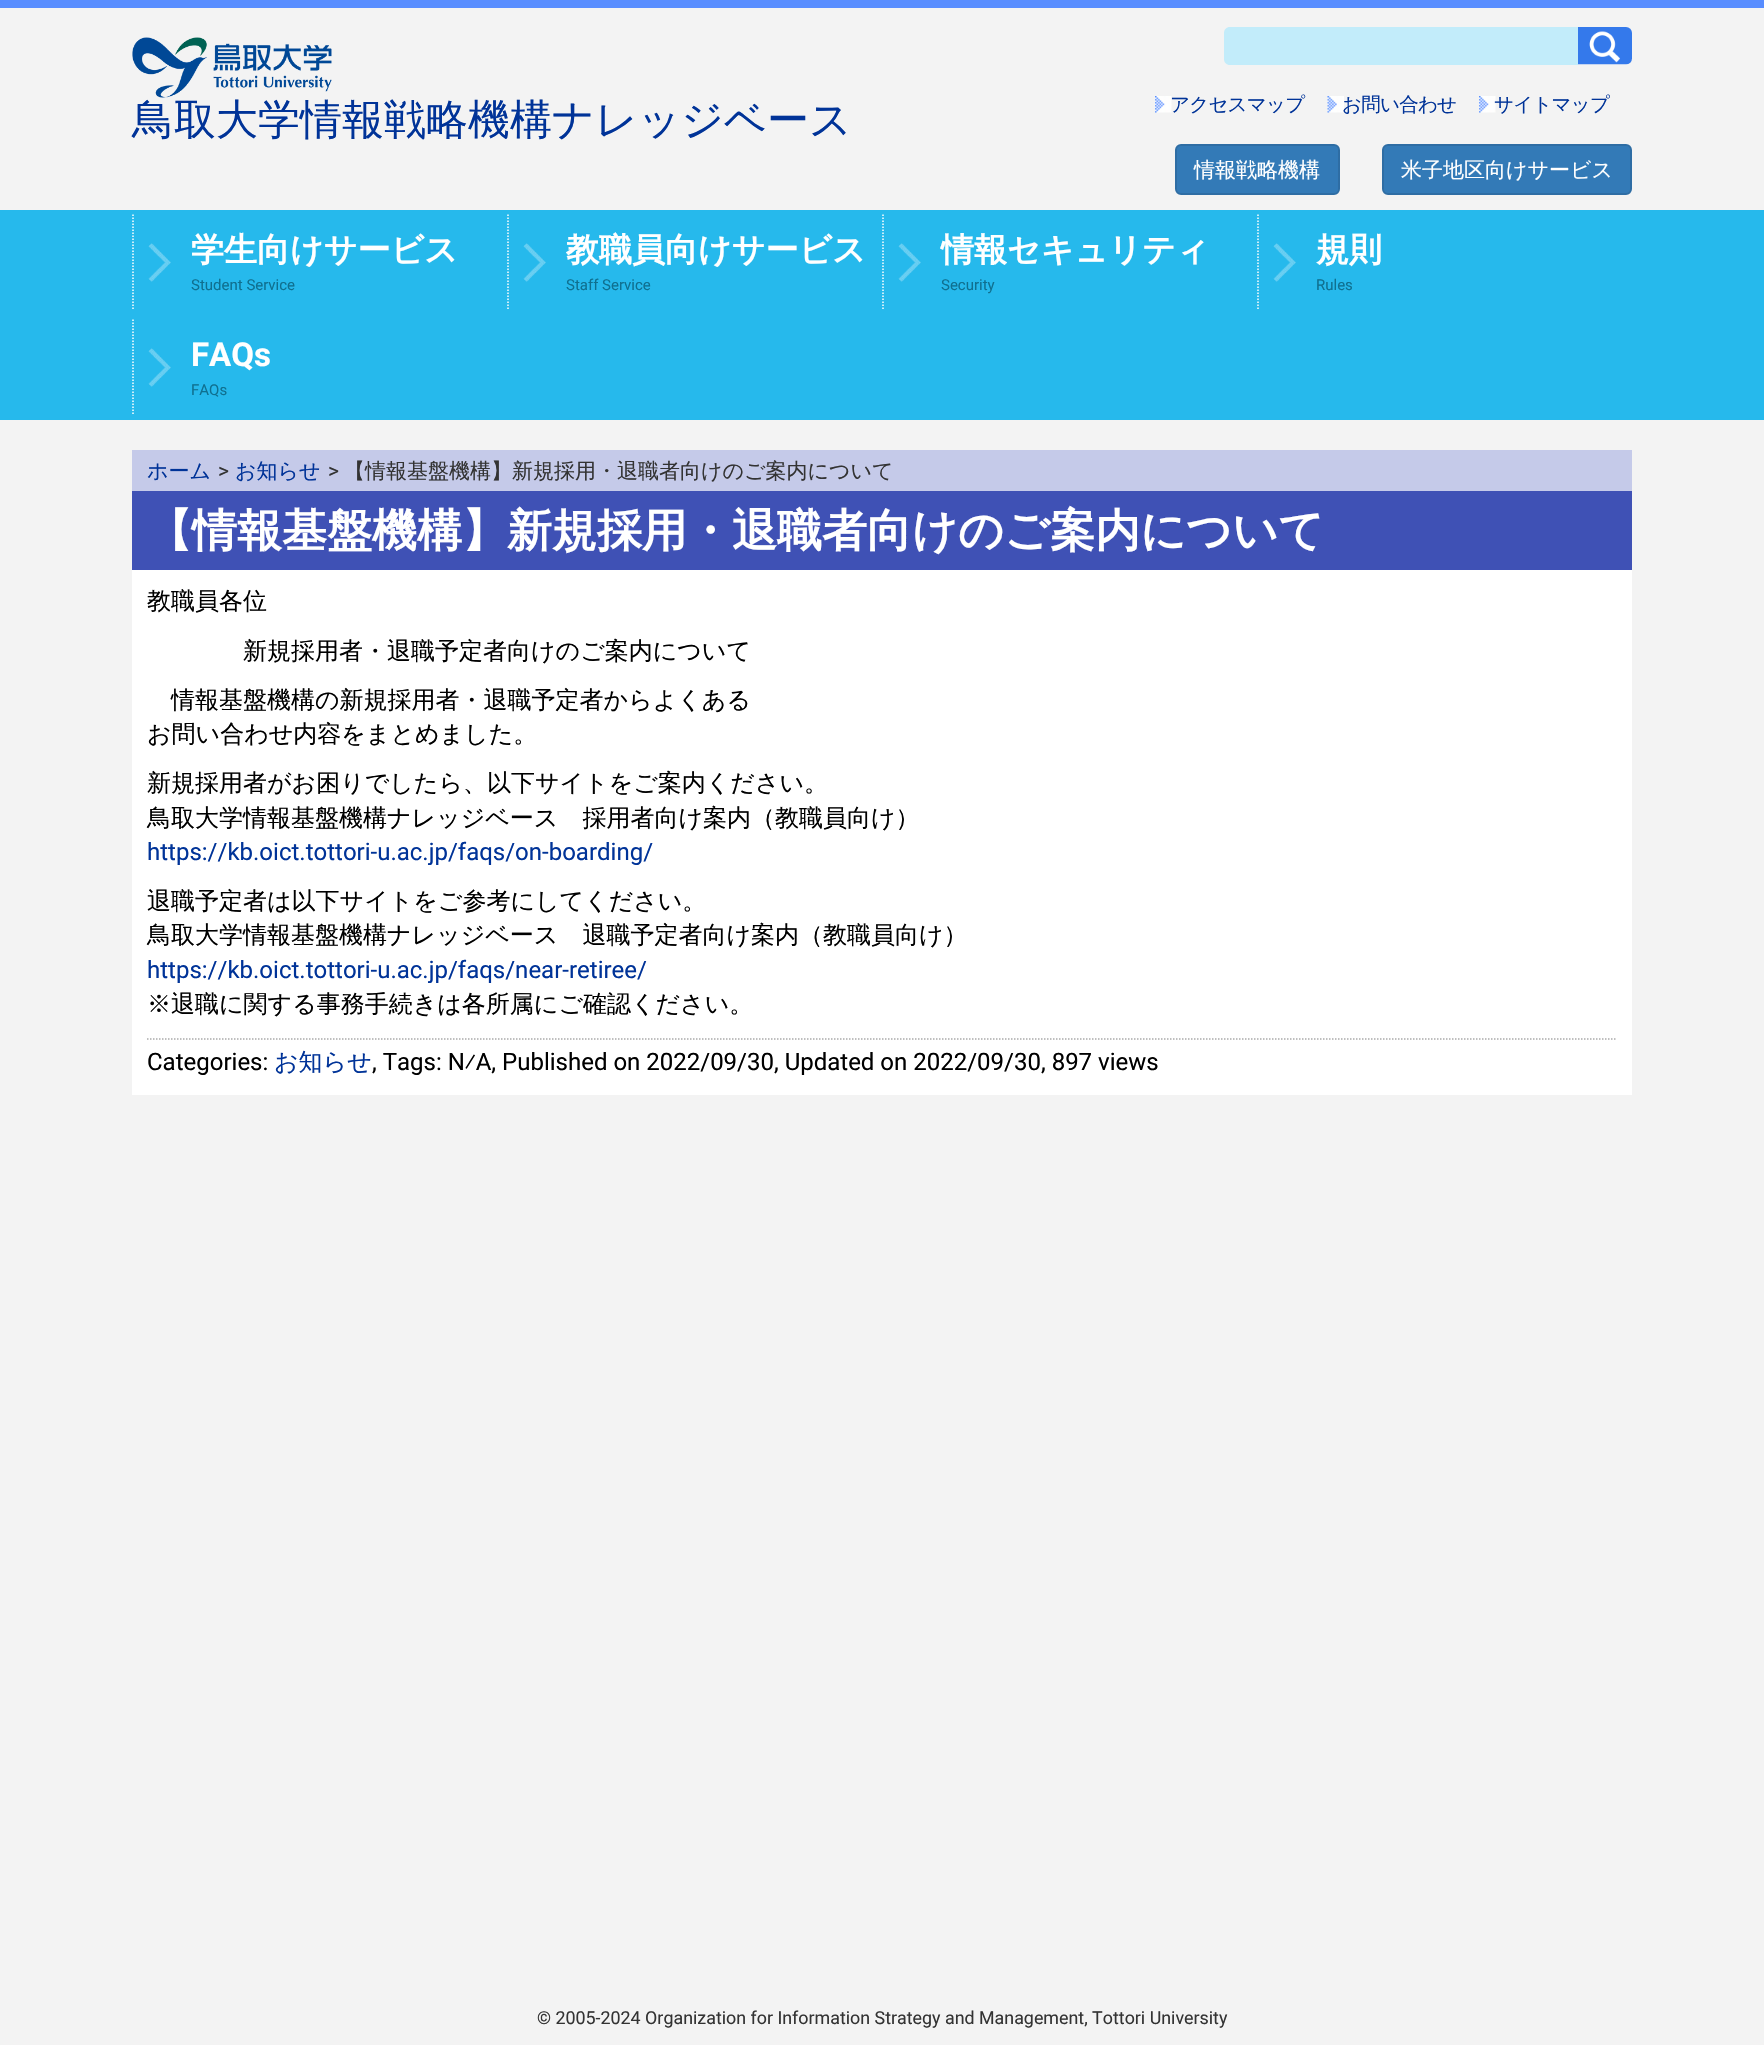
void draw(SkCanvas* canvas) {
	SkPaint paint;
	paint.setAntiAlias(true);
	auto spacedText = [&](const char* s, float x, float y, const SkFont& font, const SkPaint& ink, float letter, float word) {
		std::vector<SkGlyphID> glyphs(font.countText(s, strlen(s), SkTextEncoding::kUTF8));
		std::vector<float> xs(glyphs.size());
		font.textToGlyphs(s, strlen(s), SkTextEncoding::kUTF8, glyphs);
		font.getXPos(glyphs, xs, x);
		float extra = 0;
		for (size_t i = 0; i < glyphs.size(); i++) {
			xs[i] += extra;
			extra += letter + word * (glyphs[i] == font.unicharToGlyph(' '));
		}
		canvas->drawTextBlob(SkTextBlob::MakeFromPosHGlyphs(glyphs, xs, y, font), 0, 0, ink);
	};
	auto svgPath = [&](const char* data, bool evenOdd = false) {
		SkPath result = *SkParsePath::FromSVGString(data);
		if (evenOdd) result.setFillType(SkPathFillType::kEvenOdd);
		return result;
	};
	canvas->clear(0xfff3f3f3);
	paint.setColor(0xff588dff);
	canvas->drawRect(SkRect::MakeXYWH(0, 0, 1764, 8), paint);
	canvas->drawImageRect(SkImages::DeferredFromEncodedData(SkData::MakeFromFileName("img1.png")), SkRect::MakeXYWH(132, 37, 200, 61), SkSamplingOptions());
	SkFont f1(fontMgr->matchFamilyStyle("WenQuanYi Zen Hei", SkFontStyle(500, SkFontStyle::kNormal_Width, SkFontStyle::kUpright_Slant)), 42);
	f1.setSubpixel(true);
	paint.setColor(0xff003398);
	canvas->drawString("鳥取大学情報戦略機構ナレッジベース", 132, 134, f1, paint);
	paint.setColor(0xffc2ecfa);
	canvas->drawPath(svgPath("M1230 27H1578V65H1230C1226.5 65 1224 62.5 1224 59V33C1224 29.5 1226.5 27 1230 27Z"), paint);
	canvas->drawImageRect(SkImages::DeferredFromEncodedData(SkData::MakeFromFileName("img2.png")), SkRect::MakeXYWH(1578, 27, 54, 38), SkSamplingOptions());
	canvas->drawImageRect(SkImages::DeferredFromEncodedData(SkData::MakeFromFileName("img3.png")), SkRect::MakeXYWH(1155, 96, 17, 17), SkSamplingOptions());
	SkFont f2(fontMgr->matchFamilyStyle("WenQuanYi Zen Hei", SkFontStyle(500, SkFontStyle::kNormal_Width, SkFontStyle::kUpright_Slant)), 19.5);
	f2.setSubpixel(true);
	paint.setColor(0xff003398);
	spacedText("アクセスマップ", 1170, 111, f2, paint, -0.75, 0);
	canvas->drawImageRect(SkImages::DeferredFromEncodedData(SkData::MakeFromFileName("img4.png")), SkRect::MakeXYWH(1327, 96, 17, 17), SkSamplingOptions());
	spacedText("お問い合わせ", 1342, 111, f2, paint, -0.75, 0);
	canvas->drawImageRect(SkImages::DeferredFromEncodedData(SkData::MakeFromFileName("img3.png")), SkRect::MakeXYWH(1479, 96, 17, 17), SkSamplingOptions());
	spacedText("サイトマップ", 1494, 111, f2, paint, -0.75, 0);
	paint.setColor(0xff337ab7);
	canvas->drawRoundRect(SkRect::MakeXYWH(1176, 145, 163, 49), 5, 5, paint);
	paint.setStroke(true);
	paint.setStrokeWidth(2);
	paint.setColor(0xff2e6da4);
	canvas->drawRoundRect(SkRect::MakeXYWH(1176, 145, 163, 49), 5, 5, paint);
	SkFont f3(fontMgr->matchFamilyStyle("WenQuanYi Zen Hei", SkFontStyle(500, SkFontStyle::kNormal_Width, SkFontStyle::kUpright_Slant)), 21);
	f3.setSubpixel(true);
	paint.setStroke(false);
	paint.setColor(0xffffffff);
	canvas->drawString("情報戦略機構", 1194, 177, f3, paint);
	paint.setColor(0xff337ab7);
	canvas->drawRoundRect(SkRect::MakeXYWH(1383, 145, 248, 49), 5, 5, paint);
	paint.setStroke(true);
	paint.setColor(0xff2e6da4);
	canvas->drawRoundRect(SkRect::MakeXYWH(1383, 145, 248, 49), 5, 5, paint);
	paint.setStroke(false);
	paint.setColor(0xffffffff);
	canvas->drawString("米子地区向けサービス", 1401, 177, f3, paint);
	paint.setColor(0xff26b9ec);
	canvas->drawRect(SkRect::MakeXYWH(0, 210, 1764, 210), paint);
	paint.setStroke(true);
	paint.setStrokeWidth(1.5);
	paint.setColor(0xffffffff);
	paint.setPathEffect(SkDashPathEffect::Make({{1.5f, 1.5f}}, 0));
	canvas->drawPath(svgPath("M133 214.5V310.5"), paint);
	paint.setPathEffect(nullptr);
	canvas->drawImageRect(SkImages::DeferredFromEncodedData(SkData::MakeFromFileName("img5.png")), SkRect::MakeXYWH(148, 243, 23, 39), SkSamplingOptions());
	SkFont f4(fontMgr->matchFamilyStyle("WenQuanYi Zen Hei", SkFontStyle::Bold()), 33);
	f4.setSubpixel(true);
	paint.setStroke(false);
	canvas->drawString("学生向けサービス", 191, 261, f4, paint);
	SkFont f5(fontMgr->matchFamilyStyle("Roboto", SkFontStyle::Normal()), 15);
	f5.setSubpixel(true);
	paint.setColor(0xff0f7090);
	canvas->drawString("Student Service", 191, 290, f5, paint);
	paint.setStroke(true);
	paint.setColor(0xffffffff);
	paint.setPathEffect(SkDashPathEffect::Make({{1.5f, 1.5f}}, 0));
	canvas->drawPath(svgPath("M508 214.5V310.5"), paint);
	paint.setPathEffect(nullptr);
	canvas->drawImageRect(SkImages::DeferredFromEncodedData(SkData::MakeFromFileName("img5.png")), SkRect::MakeXYWH(523, 243, 23, 39), SkSamplingOptions());
	paint.setStroke(false);
	canvas->drawString("教職員向けサービス", 566, 261, f4, paint);
	paint.setColor(0xff0f7090);
	canvas->drawString("Staff Service", 566, 290, f5, paint);
	paint.setStroke(true);
	paint.setColor(0xffffffff);
	paint.setPathEffect(SkDashPathEffect::Make({{1.5f, 1.5f}}, 0));
	canvas->drawPath(svgPath("M883 214.5V310.5"), paint);
	paint.setPathEffect(nullptr);
	canvas->drawImageRect(SkImages::DeferredFromEncodedData(SkData::MakeFromFileName("img5.png")), SkRect::MakeXYWH(898, 243, 23, 39), SkSamplingOptions());
	paint.setStroke(false);
	canvas->drawString("情報セキュリティ", 941, 261, f4, paint);
	paint.setColor(0xff0f7090);
	canvas->drawString("Security", 941, 290, f5, paint);
	paint.setStroke(true);
	paint.setColor(0xffffffff);
	paint.setPathEffect(SkDashPathEffect::Make({{1.5f, 1.5f}}, 0));
	canvas->drawPath(svgPath("M1258 214.5V310.5"), paint);
	paint.setPathEffect(nullptr);
	canvas->drawImageRect(SkImages::DeferredFromEncodedData(SkData::MakeFromFileName("img5.png")), SkRect::MakeXYWH(1273, 243, 23, 39), SkSamplingOptions());
	paint.setStroke(false);
	canvas->drawString("規則", 1316, 261, f4, paint);
	paint.setColor(0xff0f7090);
	canvas->drawString("Rules", 1316, 290, f5, paint);
	paint.setStroke(true);
	paint.setColor(0xffffffff);
	paint.setPathEffect(SkDashPathEffect::Make({{1.5f, 1.5f}}, 0));
	canvas->drawPath(svgPath("M133 319.5V415.5"), paint);
	paint.setPathEffect(nullptr);
	canvas->drawImageRect(SkImages::DeferredFromEncodedData(SkData::MakeFromFileName("img5.png")), SkRect::MakeXYWH(148, 348, 23, 39), SkSamplingOptions());
	SkFont f6(fontMgr->matchFamilyStyle("Roboto", SkFontStyle::Bold()), 33);
	f6.setSubpixel(true);
	paint.setStroke(false);
	canvas->drawString("FAQs", 191, 366, f6, paint);
	paint.setColor(0xff0f7090);
	canvas->drawString("FAQs", 191, 395, f5, paint);
	paint.setColor(0xffc5cae9);
	canvas->drawRect(SkRect::MakeXYWH(132, 450, 1500, 41), paint);
	paint.setColor(0xff003398);
	canvas->drawString("ホーム", 147, 478, f3, paint);
	SkFont f7(fontMgr->matchFamilyStyle("Roboto", SkFontStyle::Normal()), 21);
	f7.setSubpixel(true);
	paint.setColor(0xff333333);
	canvas->drawString(">", 218, 478, f7, paint);
	paint.setColor(0xff003398);
	canvas->drawString("お知らせ", 235, 478, f3, paint);
	paint.setColor(0xff333333);
	canvas->drawString(">", 328, 478, f7, paint);
	canvas->drawString("【情報基盤機構】新規採用・退職者向けのご案内について", 344, 478, f3, paint);
	paint.setColor(0xff3f51b5);
	canvas->drawRect(SkRect::MakeXYWH(132, 491, 1500, 79), paint);
	SkFont f8(fontMgr->matchFamilyStyle("WenQuanYi Zen Hei", SkFontStyle::Bold()), 45);
	f8.setSubpixel(true);
	paint.setColor(0xffffffff);
	canvas->drawString("【情報基盤機構】新規採用・退職者向けのご案内について", 147, 546, f8, paint);
	canvas->drawRect(SkRect::MakeXYWH(132, 570, 1500, 525), paint);
	SkFont f9(fontMgr->matchFamilyStyle("WenQuanYi Zen Hei", SkFontStyle(500, SkFontStyle::kNormal_Width, SkFontStyle::kUpright_Slant)), 24);
	f9.setSubpixel(true);
	paint.setColor(0xff000000);
	canvas->drawString("教職員各位", 147, 609, f9, paint);
	canvas->drawString("新規採用者・退職予定者向けのご案内について", 243, 659, f9, paint);
	canvas->drawString("情報基盤機構の新規採用者・退職予定者からよくある", 171, 708, f9, paint);
	canvas->drawString("お問い合わせ内容をまとめました。", 147, 742, f9, paint);
	canvas->drawString("新規採用者がお困りでしたら、以下サイトをご案内ください。", 147, 791, f9, paint);
	canvas->drawString("鳥取大学情報基盤機構ナレッジベース　採用者向け案内（教職員向け）", 147, 826, f9, paint);
	SkFont f10(fontMgr->matchFamilyStyle("Roboto", SkFontStyle::Normal()), 24);
	f10.setSubpixel(true);
	paint.setColor(0xff003398);
	canvas->drawString("https://kb.oict.tottori-u.ac.jp/faqs/on-boarding/", 147, 860, f10, paint);
	paint.setColor(0xff000000);
	canvas->drawString("退職予定者は以下サイトをご参考にしてください。", 147, 909, f9, paint);
	canvas->drawString("鳥取大学情報基盤機構ナレッジベース　退職予定者向け案内（教職員向け）", 147, 943, f9, paint);
	paint.setColor(0xff003398);
	canvas->drawString("https://kb.oict.tottori-u.ac.jp/faqs/near-retiree/", 147, 978, f10, paint);
	paint.setColor(0xff000000);
	canvas->drawString("※退職に関する事務手続きは各所属にご確認ください。", 147, 1012, f9, paint);
	paint.setStroke(true);
	paint.setColor(0xffaaaaaa);
	paint.setPathEffect(SkDashPathEffect::Make({{1.5f, 1.5f}}, 0));
	canvas->drawPath(svgPath("M147 1039H1617"), paint);
	paint.setPathEffect(nullptr);
	paint.setStroke(false);
	paint.setColor(0xff000000);
	canvas->drawString("Categories:", 147, 1070, f10, paint);
	paint.setColor(0xff003398);
	canvas->drawString("お知らせ", 274, 1070, f9, paint);
	paint.setColor(0xff000000);
	canvas->drawString(", Tags: N⁄A, Published on 2022/09/30, Updated on 2022/09/30, 897 views", 372, 1070, f10, paint);
	SkFont f11(fontMgr->matchFamilyStyle("Roboto", SkFontStyle::Normal()), 17.85);
	f11.setSubpixel(true);
	paint.setColor(0xff333333);
	canvas->drawString("© 2005-2024 Organization for Information Strategy and Management, Tottori University", 537, 2024, f11, paint);
}
